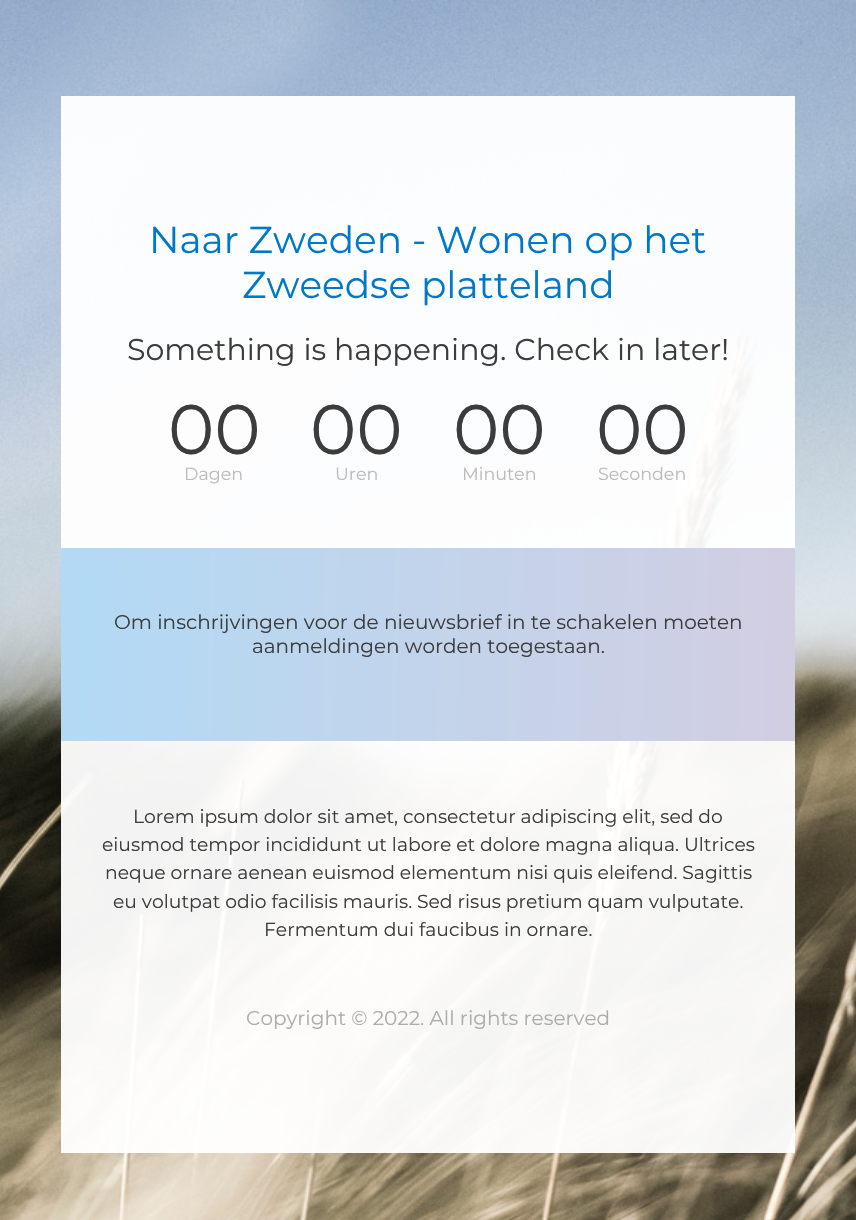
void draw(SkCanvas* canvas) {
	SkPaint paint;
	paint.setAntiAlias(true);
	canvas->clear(0xffffffff);
	canvas->drawImageRect(SkImages::DeferredFromEncodedData(SkData::MakeFromFileName("img1.png")), SkRect::MakeXYWH(0, 0, 856, 1220), SkSamplingOptions());
	paint.setColor(0xf2ffffff);
	canvas->drawRect(SkRect::MakeXYWH(61, 96, 734, 1057), paint);
	SkFont f1(fontMgr->matchFamilyStyle("Montserrat", SkFontStyle::Normal()), 37.5);
	f1.setSubpixel(true);
	paint.setColor(0xff0078c8);
	canvas->drawString("Naar Zweden - Wonen op het", 149, 253, f1, paint);
	canvas->drawString("Zweedse platteland", 242, 298, f1, paint);
	SkFont f2(fontMgr->matchFamilyStyle("Montserrat", SkFontStyle::Normal()), 30);
	f2.setSubpixel(true);
	paint.setColor(0xff3c3c3c);
	canvas->drawString("Something is happening. Check in later!", 127, 360, f2, paint);
	SkFont f3(fontMgr->matchFamilyStyle("Montserrat", SkFontStyle::Normal()), 70);
	f3.setSubpixel(true);
	canvas->drawString("00", 168, 454, f3, paint);
	SkFont f4(fontMgr->matchFamilyStyle("Montserrat", SkFontStyle::Normal()), 17.5);
	f4.setSubpixel(true);
	paint.setColor(0xffbbbbbb);
	canvas->drawString("Dagen", 184, 480, f4, paint);
	paint.setColor(0xff3c3c3c);
	canvas->drawString("00", 310, 454, f3, paint);
	paint.setColor(0xffbbbbbb);
	canvas->drawString("Uren", 335, 480, f4, paint);
	paint.setColor(0xff3c3c3c);
	canvas->drawString("00", 453, 454, f3, paint);
	paint.setColor(0xffbbbbbb);
	canvas->drawString("Minuten", 462, 480, f4, paint);
	paint.setColor(0xff3c3c3c);
	canvas->drawString("00", 596, 454, f3, paint);
	paint.setColor(0xffbbbbbb);
	canvas->drawString("Seconden", 598, 480, f4, paint);
	{
		const SkColor colors[] = {0xffb2daf5, 0xffd2cee2};
		const float stops[] = {0, 1};
		const SkPoint ends[] = {{59, 635}, {797, 653}};
		paint.setShader(SkGradientShader::MakeLinear(ends, colors, stops, 2, SkTileMode::kClamp));
		paint.setAlpha(255);
	}
	canvas->drawRect(SkRect::MakeXYWH(61, 548, 734, 193), paint);
	SkFont f5(fontMgr->matchFamilyStyle("Montserrat", SkFontStyle::Normal()), 20);
	f5.setSubpixel(true);
	paint.setShader(nullptr);
	paint.setColor(0xff3c3c3c);
	canvas->drawString("Om inschrijvingen voor de nieuwsbrief in te schakelen moeten", 114, 629, f5, paint);
	canvas->drawString("aanmeldingen worden toegestaan.", 252, 653, f5, paint);
	SkFont f6(fontMgr->matchFamilyStyle("Montserrat", SkFontStyle::Normal()), 18.75);
	f6.setSubpixel(true);
	canvas->drawString("Lorem ipsum dolor sit amet, consectetur adipiscing elit, sed do", 133, 823, f6, paint);
	canvas->drawString("eiusmod tempor incididunt ut labore et dolore magna aliqua. Ultrices", 102, 851, f6, paint);
	canvas->drawString("neque ornare aenean euismod elementum nisi quis eleifend. Sagittis", 105, 879, f6, paint);
	canvas->drawString("eu volutpat odio facilisis mauris. Sed risus pretium quam vulputate.", 113, 908, f6, paint);
	canvas->drawString("Fermentum dui faucibus in ornare.", 264, 936, f6, paint);
	paint.setColor(0xffacacac);
	canvas->drawString("Copyright © 2022. All rights reserved", 246, 1025, f5, paint);
}
